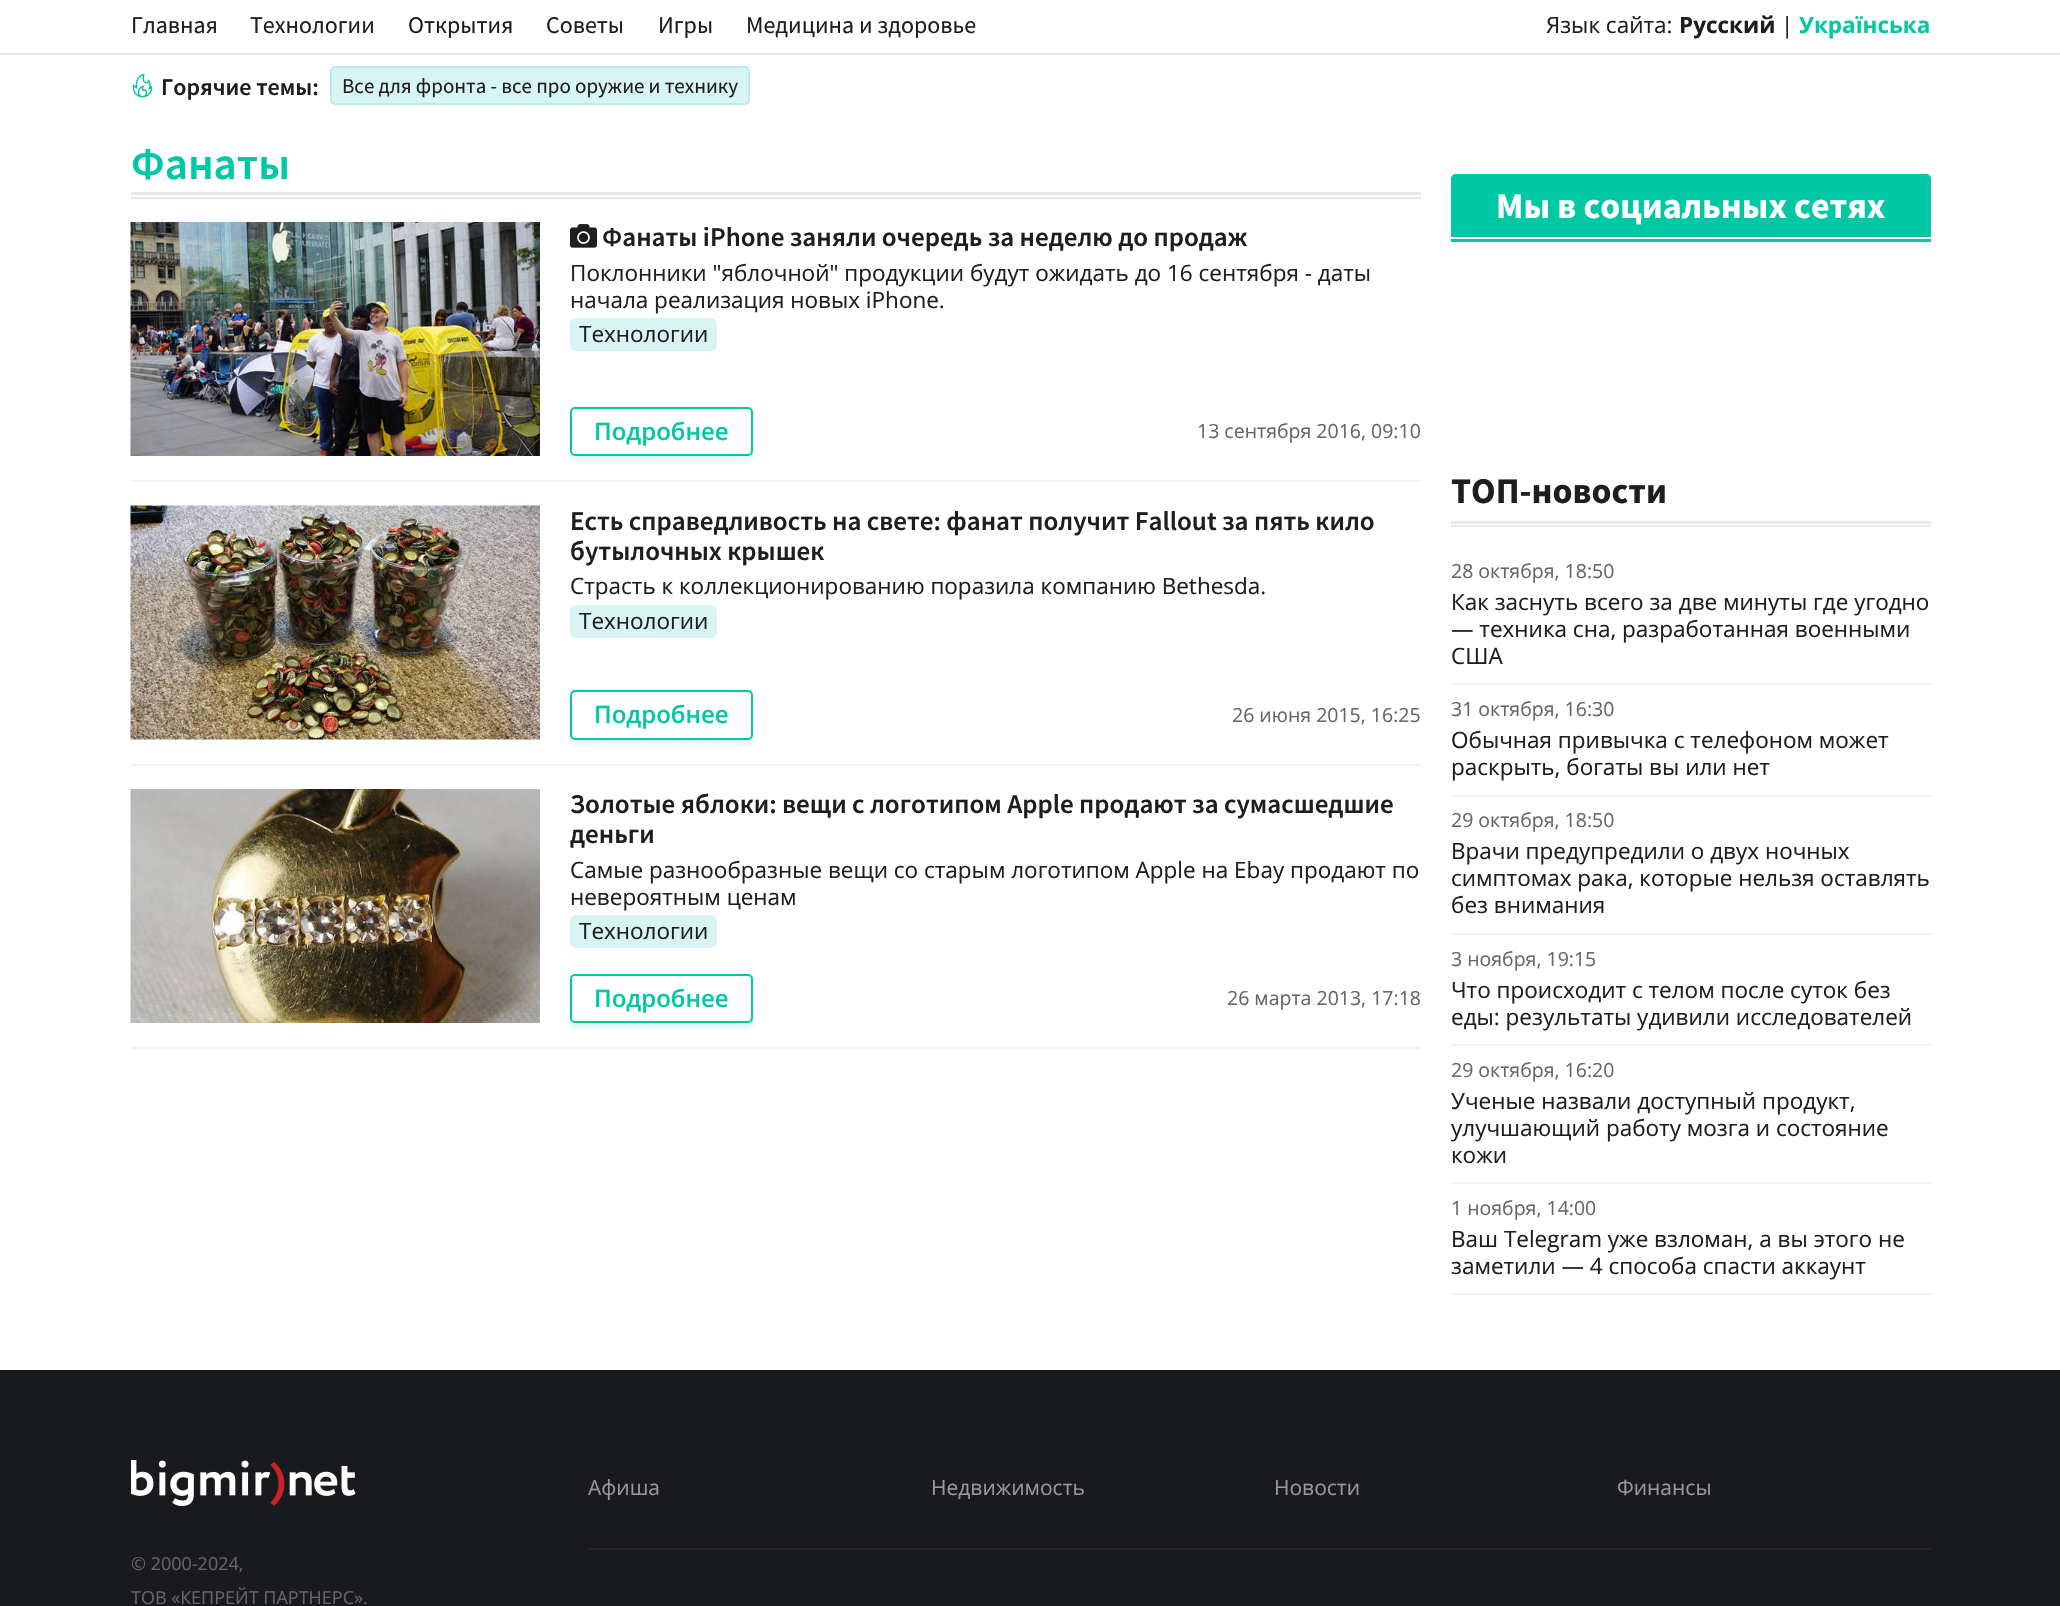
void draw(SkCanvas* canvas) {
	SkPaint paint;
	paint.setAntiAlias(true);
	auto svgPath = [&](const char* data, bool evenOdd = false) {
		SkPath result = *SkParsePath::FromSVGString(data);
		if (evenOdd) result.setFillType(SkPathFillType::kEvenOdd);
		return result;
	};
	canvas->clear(0xffffffff);
	paint.setColor(0xffe6e6e6);
	canvas->drawRect(SkRect::MakeXYWH(0, 53, 2060, 2), paint);
	SkFont f1(fontMgr->matchFamilyStyle("Source Sans Pro", SkFontStyle::Normal()), 24);
	f1.setSubpixel(true);
	paint.setColor(0xff1e1e1e);
	canvas->drawString("Главная", 131, 33, f1, paint);
	canvas->drawString("Технологии", 250, 33, f1, paint);
	canvas->drawString("Открытия", 408, 33, f1, paint);
	canvas->drawString("Советы", 546, 33, f1, paint);
	canvas->drawString("Игры", 658, 33, f1, paint);
	canvas->drawString("Медицина и здоровье", 746, 33, f1, paint);
	SkFont f2(fontMgr->matchFamilyStyle("Open Sans", SkFontStyle::Normal()), 22.5);
	f2.setSubpixel(true);
	canvas->drawString("Язык сайта:", 1546, 33, f2, paint);
	SkFont f3(fontMgr->matchFamilyStyle("Open Sans", SkFontStyle::Bold()), 22.5);
	f3.setSubpixel(true);
	canvas->drawString("Русский", 1679, 33, f3, paint);
	canvas->drawString("|", 1781, 33, f2, paint);
	paint.setColor(0xff00c8a4);
	canvas->drawString("Українська", 1799, 33, f3, paint);
	canvas->drawImageRect(SkImages::DeferredFromEncodedData(SkData::MakeFromFileName("img1.png")), SkRect::MakeXYWH(132, 74, 20, 24), SkSamplingOptions());
	SkFont f4(fontMgr->matchFamilyStyle("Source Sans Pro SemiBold", SkFontStyle(600, SkFontStyle::kNormal_Width, SkFontStyle::kUpright_Slant)), 24);
	f4.setSubpixel(true);
	paint.setColor(0xff1e1e1e);
	canvas->drawString("Горячие темы:", 161, 95, f4, paint);
	paint.setColor(0xffd9f5f3);
	canvas->drawRoundRect(SkRect::MakeXYWH(330, 66, 420, 39), 5, 5, paint);
	paint.setStroke(true);
	paint.setStrokeWidth(2);
	paint.setColor(0x2600bbb0);
	canvas->drawRoundRect(SkRect::MakeXYWH(331, 67, 418, 37), 4, 4, paint);
	SkFont f5(fontMgr->matchFamilyStyle("Source Sans Pro", SkFontStyle::Normal()), 21);
	f5.setSubpixel(true);
	paint.setStroke(false);
	paint.setColor(0xff1e1e1e);
	canvas->drawString("Все для фронта - все про оружие и технику", 342, 93, f5, paint);
	paint.setColor(0xffeae7e7);
	canvas->drawRect(SkRect::MakeXYWH(131, 197, 1290, 2), paint);
	SkFont f6(fontMgr->matchFamilyStyle("Source Sans Pro SemiBold", SkFontStyle(600, SkFontStyle::kNormal_Width, SkFontStyle::kUpright_Slant)), 45);
	f6.setSubpixel(true);
	paint.setColor(0xff00c8a4);
	canvas->drawString("Фанаты", 131, 179, f6, paint);
	paint.setColor(0xffeae7e7);
	canvas->drawRect(SkRect::MakeXYWH(131, 192, 1290, 3), paint);
	paint.setColor(0xfff2f2f2);
	canvas->drawRect(SkRect::MakeXYWH(131, 480, 1290, 2), paint);
	canvas->drawImageRect(SkImages::DeferredFromEncodedData(SkData::MakeFromFileName("img2.png")), SkRect::MakeXYWH(130, 222, 410, 234), SkSamplingOptions());
	canvas->drawImageRect(SkImages::DeferredFromEncodedData(SkData::MakeFromFileName("img3.png")), SkRect::MakeXYWH(570, 224, 27, 24), SkSamplingOptions());
	SkFont f7(fontMgr->matchFamilyStyle("Source Sans Pro SemiBold", SkFontStyle(600, SkFontStyle::kNormal_Width, SkFontStyle::kUpright_Slant)), 27);
	f7.setSubpixel(true);
	paint.setColor(0xff1e1e1e);
	canvas->drawString("Фанаты iPhone заняли очередь за неделю до продаж", 602, 246, f7, paint);
	canvas->drawString("Поклонники \"яблочной\" продукции будут ожидать до 16 сентября - даты", 570, 281, f2, paint);
	canvas->drawString("начала реализация новых iPhone.", 570, 308, f2, paint);
	paint.setColor(0xffd9f5f3);
	canvas->drawRoundRect(SkRect::MakeXYWH(570, 318, 147, 33), 6, 6, paint);
	paint.setColor(0xff1e1e1e);
	canvas->drawString("Технологии", 579, 342, f2, paint);
	canvas->save();
	canvas->clipPath(svgPath("M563 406H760V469H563ZM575 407H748C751 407 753 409 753 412V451C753 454 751 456 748 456H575C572 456 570 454 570 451V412C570 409 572 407 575 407Z", true), true);
	paint.setColor(0x1a00bbb0);
	paint.setMaskFilter(SkMaskFilter::MakeBlur(kNormal_SkBlurStyle, 2));
	canvas->drawRoundRect(SkRect::MakeXYWH(570, 413, 183, 49), 5, 5, paint);
	paint.setMaskFilter(nullptr);
	canvas->restore();
	paint.setStroke(true);
	paint.setColor(0xff00c8a4);
	canvas->drawRoundRect(SkRect::MakeXYWH(571, 408, 181, 47), 4, 4, paint);
	SkFont f8(fontMgr->matchFamilyStyle("Open Sans", SkFontStyle(600, SkFontStyle::kNormal_Width, SkFontStyle::kUpright_Slant)), 24);
	f8.setSubpixel(true);
	paint.setStroke(false);
	canvas->drawString("Подробнее", 594, 440, f8, paint);
	SkFont f9(fontMgr->matchFamilyStyle("Open Sans", SkFontStyle::Normal()), 19.5);
	f9.setSubpixel(true);
	paint.setColor(0xff666666);
	canvas->drawString("13 сентября 2016, 09:10", 1197, 438, f9, paint);
	paint.setColor(0xfff2f2f2);
	canvas->drawRect(SkRect::MakeXYWH(131, 764, 1290, 2), paint);
	canvas->drawImageRect(SkImages::DeferredFromEncodedData(SkData::MakeFromFileName("img4.png")), SkRect::MakeXYWH(130, 505, 410, 235), SkSamplingOptions());
	paint.setColor(0xff1e1e1e);
	canvas->drawString("Есть справедливость на свете: фанат получит Fallout за пять кило", 570, 530, f7, paint);
	canvas->drawString("бутылочных крышек", 570, 560, f7, paint);
	canvas->drawString("Страсть к коллекционированию поразила компанию Bethesda.", 570, 594, f2, paint);
	paint.setColor(0xffd9f5f3);
	canvas->drawRoundRect(SkRect::MakeXYWH(570, 605, 147, 33), 6, 6, paint);
	paint.setColor(0xff1e1e1e);
	canvas->drawString("Технологии", 579, 629, f2, paint);
	canvas->save();
	canvas->clipPath(svgPath("M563 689H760V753H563ZM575 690H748C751 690 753 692 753 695V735C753 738 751 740 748 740H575C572 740 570 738 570 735V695C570 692 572 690 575 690Z", true), true);
	paint.setColor(0x1a00bbb0);
	paint.setMaskFilter(SkMaskFilter::MakeBlur(kNormal_SkBlurStyle, 2));
	canvas->drawRoundRect(SkRect::MakeXYWH(570, 696, 183, 50), 5, 5, paint);
	paint.setMaskFilter(nullptr);
	canvas->restore();
	paint.setStroke(true);
	paint.setColor(0xff00c8a4);
	canvas->drawRoundRect(SkRect::MakeXYWH(571, 691, 181, 48), 4, 4, paint);
	paint.setStroke(false);
	canvas->drawString("Подробнее", 594, 723, f8, paint);
	paint.setColor(0xff666666);
	canvas->drawString("26 июня 2015, 16:25", 1232, 722, f9, paint);
	paint.setColor(0xfff2f2f2);
	canvas->drawRect(SkRect::MakeXYWH(131, 1047, 1290, 2), paint);
	canvas->drawImageRect(SkImages::DeferredFromEncodedData(SkData::MakeFromFileName("img5.png")), SkRect::MakeXYWH(130, 789, 410, 234), SkSamplingOptions());
	paint.setColor(0xff1e1e1e);
	canvas->drawString("Золотые яблоки: вещи с логотипом Apple продают за сумасшедшие", 570, 813, f7, paint);
	canvas->drawString("деньги", 570, 843, f7, paint);
	canvas->drawString("Самые разнообразные вещи со старым логотипом Apple на Ebay продают по", 570, 878, f2, paint);
	canvas->drawString("невероятным ценам", 570, 905, f2, paint);
	paint.setColor(0xffd9f5f3);
	canvas->drawRoundRect(SkRect::MakeXYWH(570, 915, 147, 33), 6, 6, paint);
	paint.setColor(0xff1e1e1e);
	canvas->drawString("Технологии", 579, 939, f2, paint);
	canvas->save();
	canvas->clipPath(svgPath("M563 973H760V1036H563ZM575 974H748C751 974 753 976 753 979V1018C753 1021 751 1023 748 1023H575C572 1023 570 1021 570 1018V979C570 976 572 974 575 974Z", true), true);
	paint.setColor(0x1a00bbb0);
	paint.setMaskFilter(SkMaskFilter::MakeBlur(kNormal_SkBlurStyle, 2));
	canvas->drawRoundRect(SkRect::MakeXYWH(570, 980, 183, 49), 5, 5, paint);
	paint.setMaskFilter(nullptr);
	canvas->restore();
	paint.setStroke(true);
	paint.setColor(0xff00c8a4);
	canvas->drawRoundRect(SkRect::MakeXYWH(571, 975, 181, 47), 4, 4, paint);
	paint.setStroke(false);
	canvas->drawString("Подробнее", 594, 1007, f8, paint);
	paint.setColor(0xff666666);
	canvas->drawString("26 марта 2013, 17:18", 1227, 1005, f9, paint);
	paint.setColor(0xff00c8a4);
	canvas->drawRect(SkRect::MakeXYWH(1451, 239, 480, 3), paint);
	canvas->drawPath(svgPath("M1456 174H1926C1929 174 1931 176 1931 179V239H1451V179C1451 176 1453 174 1456 174Z"), paint);
	paint.setColor(0xffffffff);
	canvas->drawRect(SkRect::MakeXYWH(1451, 237, 480, 2), paint);
	SkFont f10(fontMgr->matchFamilyStyle("Source Sans Pro", SkFontStyle::Bold()), 36);
	f10.setSubpixel(true);
	canvas->drawString("Мы в социальных сетях", 1496, 218, f10, paint);
	paint.setColor(0xffeae7e7);
	canvas->drawRect(SkRect::MakeXYWH(1451, 525, 480, 2), paint);
	paint.setColor(0xff1e1e1e);
	canvas->drawString("ТОП-новости", 1451, 503, f10, paint);
	paint.setColor(0xffeae7e7);
	canvas->drawRect(SkRect::MakeXYWH(1451, 521, 480, 3), paint);
	paint.setColor(0xfff2f2f2);
	canvas->drawRect(SkRect::MakeXYWH(1451, 683, 480, 2), paint);
	paint.setColor(0xff666666);
	canvas->drawString("28 октября, 18:50", 1451, 578, f9, paint);
	paint.setColor(0xff1e1e1e);
	canvas->drawString("Как заснуть всего за две минуты где угодно", 1451, 610, f2, paint);
	canvas->drawString("— техника сна, разработанная военными", 1451, 637, f2, paint);
	canvas->drawString("США", 1451, 664, f2, paint);
	paint.setColor(0xfff2f2f2);
	canvas->drawRect(SkRect::MakeXYWH(1451, 795, 480, 2), paint);
	paint.setColor(0xff666666);
	canvas->drawString("31 октября, 16:30", 1451, 716, f9, paint);
	paint.setColor(0xff1e1e1e);
	canvas->drawString("Обычная привычка с телефоном может", 1451, 748, f2, paint);
	canvas->drawString("раскрыть, богаты вы или нет", 1451, 775, f2, paint);
	paint.setColor(0xfff2f2f2);
	canvas->drawRect(SkRect::MakeXYWH(1451, 933, 480, 2), paint);
	paint.setColor(0xff666666);
	canvas->drawString("29 октября, 18:50", 1451, 827, f9, paint);
	paint.setColor(0xff1e1e1e);
	canvas->drawString("Врачи предупредили о двух ночных", 1451, 859, f2, paint);
	canvas->drawString("симптомах рака, которые нельзя оставлять", 1451, 886, f2, paint);
	canvas->drawString("без внимания", 1451, 913, f2, paint);
	paint.setColor(0xfff2f2f2);
	canvas->drawRect(SkRect::MakeXYWH(1451, 1044, 480, 2), paint);
	paint.setColor(0xff666666);
	canvas->drawString("3 ноября, 19:15", 1451, 966, f9, paint);
	paint.setColor(0xff1e1e1e);
	canvas->drawString("Что происходит с телом после суток без", 1451, 998, f2, paint);
	canvas->drawString("еды: результаты удивили исследователей", 1451, 1025, f2, paint);
	paint.setColor(0xfff2f2f2);
	canvas->drawRect(SkRect::MakeXYWH(1451, 1182, 480, 2), paint);
	paint.setColor(0xff666666);
	canvas->drawString("29 октября, 16:20", 1451, 1077, f9, paint);
	paint.setColor(0xff1e1e1e);
	canvas->drawString("Ученые назвали доступный продукт,", 1451, 1109, f2, paint);
	canvas->drawString("улучшающий работу мозга и состояние", 1451, 1136, f2, paint);
	canvas->drawString("кожи", 1451, 1163, f2, paint);
	paint.setColor(0xfff2f2f2);
	canvas->drawRect(SkRect::MakeXYWH(1451, 1293, 480, 2), paint);
	paint.setColor(0xff666666);
	canvas->drawString("1 ноября, 14:00", 1451, 1215, f9, paint);
	paint.setColor(0xff1e1e1e);
	canvas->drawString("Ваш Telegram уже взломан, а вы этого не", 1451, 1247, f2, paint);
	canvas->drawString("заметили — 4 способа спасти аккаунт", 1451, 1274, f2, paint);
	paint.setColor(0xff191a1e);
	canvas->drawRect(SkRect::MakeXYWH(0, 1370, 2060, 236), paint);
	SkFont f11(fontMgr->matchFamilyStyle("Open Sans", SkFontStyle::Normal()), 21);
	f11.setSubpixel(true);
	paint.setColor(0xff999999);
	canvas->drawString("Афиша", 588, 1495, f11, paint);
	canvas->drawString("Недвижимость", 931, 1495, f11, paint);
	canvas->drawString("Новости", 1274, 1495, f11, paint);
	canvas->drawString("Финансы", 1617, 1495, f11, paint);
	paint.setColor(0xff252529);
	canvas->drawRect(SkRect::MakeXYWH(588, 1548, 1343, 2), paint);
	canvas->drawImageRect(SkImages::DeferredFromEncodedData(SkData::MakeFromFileName("img6.png")), SkRect::MakeXYWH(131, 1460, 225, 46), SkSamplingOptions());
	SkFont f12(fontMgr->matchFamilyStyle("Open Sans", SkFontStyle::Normal()), 18);
	f12.setSubpixel(true);
	paint.setColor(0xff666666);
	canvas->drawString("© 2000-2024,", 131, 1570, f12, paint);
	canvas->drawString("ТОВ «КЕПРЕЙТ ПАРТНЕРС».", 131, 1604, f12, paint);
}
